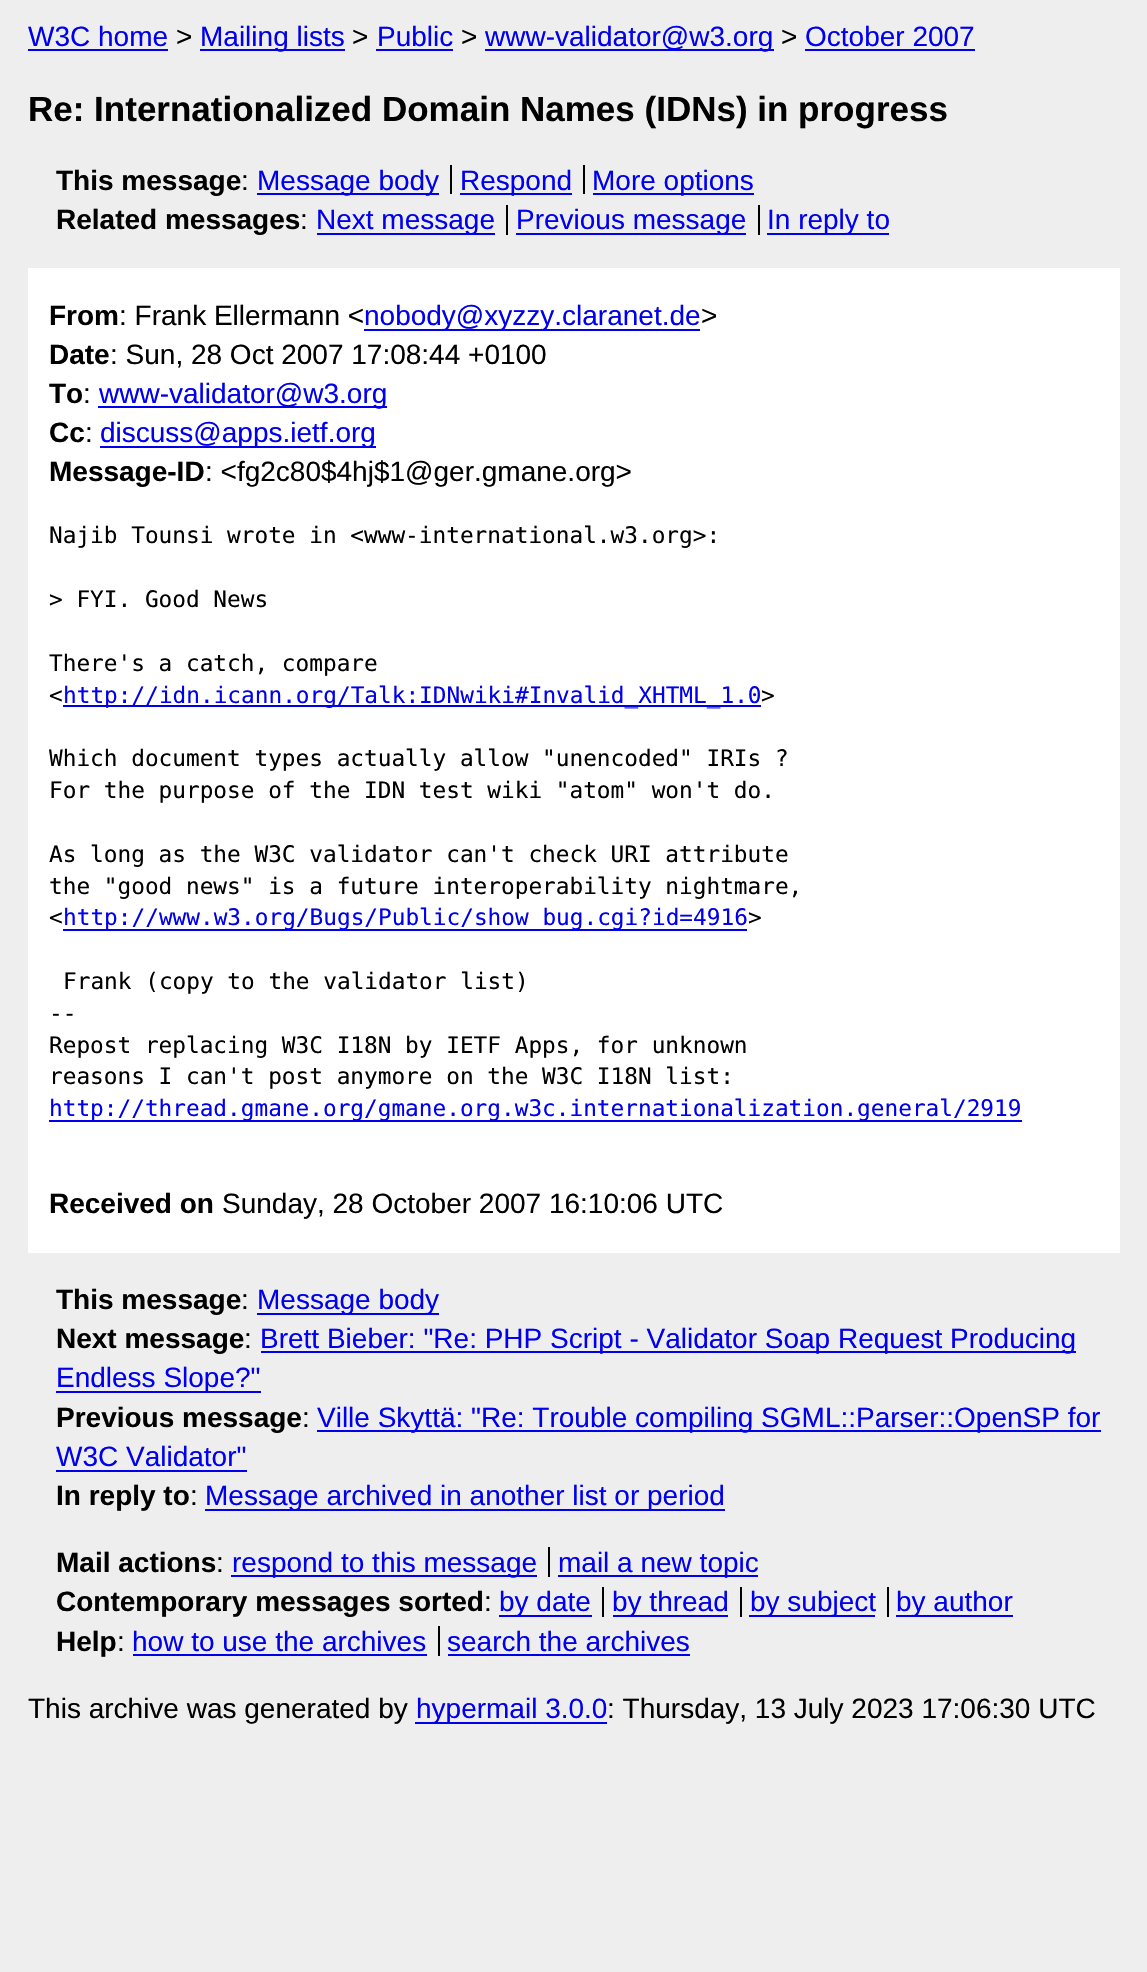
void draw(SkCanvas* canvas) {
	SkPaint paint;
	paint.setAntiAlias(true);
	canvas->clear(0xffeeeeee);
	SkFont f1(fontMgr->matchFamilyStyle("Liberation Sans", SkFontStyle::Normal()), 28);
	f1.setSubpixel(true);
	paint.setColor(0xff0000ee);
	canvas->drawString("W3C home", 28, 46, f1, paint);
	canvas->drawRect(SkRect::MakeXYWH(28, 49, 140, 2), paint);
	paint.setColor(0xff000000);
	canvas->drawString(">", 176, 46, f1, paint);
	paint.setColor(0xff0000ee);
	canvas->drawRect(SkRect::MakeXYWH(200, 49, 145, 2), paint);
	canvas->drawString("Mailing lists", 200, 46, f1, paint);
	paint.setColor(0xff000000);
	canvas->drawString(">", 352, 46, f1, paint);
	paint.setColor(0xff0000ee);
	canvas->drawString("Public", 377, 46, f1, paint);
	canvas->drawRect(SkRect::MakeXYWH(376, 49, 77, 2), paint);
	paint.setColor(0xff000000);
	canvas->drawString(">", 461, 46, f1, paint);
	paint.setColor(0xff0000ee);
	canvas->drawRect(SkRect::MakeXYWH(485, 49, 289, 2), paint);
	canvas->drawString("www-validator@w3.org", 485, 46, f1, paint);
	paint.setColor(0xff000000);
	canvas->drawString(">", 781, 46, f1, paint);
	paint.setColor(0xff0000ee);
	canvas->drawString("October 2007", 805, 46, f1, paint);
	canvas->drawRect(SkRect::MakeXYWH(805, 49, 170, 2), paint);
	SkFont f2(fontMgr->matchFamilyStyle("Liberation Sans", SkFontStyle::Bold()), 35);
	f2.setSubpixel(true);
	paint.setColor(0xff000000);
	canvas->drawString("Re: Internationalized Domain Names (IDNs) in progress", 28, 121, f2, paint);
	SkFont f3(fontMgr->matchFamilyStyle("Liberation Sans", SkFontStyle::Bold()), 28);
	f3.setSubpixel(true);
	canvas->drawString("This message", 56, 190, f3, paint);
	canvas->drawString(":", 241, 190, f1, paint);
	paint.setColor(0xff0000ee);
	canvas->drawRect(SkRect::MakeXYWH(257, 193, 182, 2), paint);
	canvas->drawString("Message body", 257, 190, f1, paint);
	canvas->drawRect(SkRect::MakeXYWH(460, 193, 112, 2), paint);
	canvas->drawString("Respond", 460, 190, f1, paint);
	paint.setColor(0xff000000);
	canvas->drawRect(SkRect::MakeXYWH(450, 165, 2, 29), paint);
	paint.setColor(0xff0000ee);
	canvas->drawRect(SkRect::MakeXYWH(593, 193, 161, 2), paint);
	canvas->drawString("More options", 592, 190, f1, paint);
	paint.setColor(0xff000000);
	canvas->drawRect(SkRect::MakeXYWH(583, 165, 2, 29), paint);
	canvas->drawString("Related messages", 56, 229, f3, paint);
	canvas->drawString(":", 300, 229, f1, paint);
	paint.setColor(0xff0000ee);
	canvas->drawRect(SkRect::MakeXYWH(317, 233, 178, 2), paint);
	canvas->drawString("Next message", 316, 229, f1, paint);
	canvas->drawRect(SkRect::MakeXYWH(516, 233, 230, 2), paint);
	canvas->drawString("Previous message", 516, 229, f1, paint);
	paint.setColor(0xff000000);
	canvas->drawRect(SkRect::MakeXYWH(506, 205, 2, 30), paint);
	paint.setColor(0xff0000ee);
	canvas->drawRect(SkRect::MakeXYWH(767, 233, 122, 2), paint);
	canvas->drawString("In reply to", 767, 229, f1, paint);
	paint.setColor(0xff000000);
	canvas->drawRect(SkRect::MakeXYWH(758, 205, 2, 30), paint);
	paint.setColor(0xffffffff);
	canvas->drawRect(SkRect::MakeXYWH(28, 268, 1092, 985), paint);
	paint.setColor(0xff000000);
	canvas->drawString("From", 49, 325, f3, paint);
	canvas->drawString(": Frank Ellermann <", 119, 325, f1, paint);
	paint.setColor(0xff0000ee);
	canvas->drawRect(SkRect::MakeXYWH(364, 329, 336, 2), paint);
	canvas->drawString("nobody@xyzzy.claranet.de", 364, 325, f1, paint);
	paint.setColor(0xff000000);
	canvas->drawString(">", 701, 325, f1, paint);
	canvas->drawString("Date", 49, 364, f3, paint);
	canvas->drawString(": Sun, 28 Oct 2007 17:08:44 +0100", 110, 364, f1, paint);
	canvas->drawString("To", 49, 403, f3, paint);
	canvas->drawString(":", 83, 403, f1, paint);
	paint.setColor(0xff0000ee);
	canvas->drawRect(SkRect::MakeXYWH(98, 406, 289, 2), paint);
	canvas->drawString("www-validator@w3.org", 99, 403, f1, paint);
	paint.setColor(0xff000000);
	canvas->drawString("Cc", 49, 442, f3, paint);
	canvas->drawString(":", 85, 442, f1, paint);
	paint.setColor(0xff0000ee);
	canvas->drawRect(SkRect::MakeXYWH(100, 446, 276, 2), paint);
	canvas->drawString("discuss@apps.ietf.org", 100, 442, f1, paint);
	paint.setColor(0xff000000);
	canvas->drawString("Message-ID", 49, 481, f3, paint);
	canvas->drawString(": <fg2c80$4hj$1@ger.gmane.org>", 205, 481, f1, paint);
	SkFont f4(fontMgr->matchFamilyStyle("DejaVu Sans Mono", SkFontStyle::Normal()), 22.75);
	f4.setSubpixel(true);
	canvas->drawString("Najib Tounsi wrote in <www-international.w3.org>:", 49, 543, f4, paint);
	canvas->drawString("> FYI. Good News", 49, 607, f4, paint);
	canvas->drawString("There's a catch, compare", 49, 671, f4, paint);
	canvas->drawString("<", 49, 703, f4, paint);
	paint.setColor(0xff0000ee);
	canvas->drawRect(SkRect::MakeXYWH(63, 705, 698, 2), paint);
	canvas->drawString("http://idn.icann.org/Talk:IDNwiki#Invalid_XHTML_1.0", 63, 703, f4, paint);
	paint.setColor(0xff000000);
	canvas->drawString(">", 761, 703, f4, paint);
	canvas->drawString("Which document types actually allow \"unencoded\" IRIs ?", 49, 766, f4, paint);
	canvas->drawString("For the purpose of the IDN test wiki \"atom\" won't do.", 49, 798, f4, paint);
	canvas->drawString("As long as the W3C validator can't check URI attribute", 49, 862, f4, paint);
	canvas->drawString("the \"good news\" is a future interoperability nightmare,", 49, 894, f4, paint);
	canvas->drawString("<", 49, 925, f4, paint);
	paint.setColor(0xff0000ee);
	canvas->drawRect(SkRect::MakeXYWH(63, 929, 684, 2), paint);
	canvas->drawString("http://www.w3.org/Bugs/Public/show_bug.cgi?id=4916", 63, 925, f4, paint);
	paint.setColor(0xff000000);
	canvas->drawString(">", 748, 925, f4, paint);
	canvas->drawString("Frank (copy to the validator list)", 63, 989, f4, paint);
	canvas->drawString("--", 49, 1021, f4, paint);
	canvas->drawString("Repost replacing W3C I18N by IETF Apps, for unknown", 49, 1053, f4, paint);
	canvas->drawString("reasons I can't post anymore on the W3C I18N list:", 49, 1084, f4, paint);
	paint.setColor(0xff0000ee);
	canvas->drawRect(SkRect::MakeXYWH(49, 1120, 973, 2), paint);
	canvas->drawString("http://thread.gmane.org/gmane.org.w3c.internationalization.general/2919", 49, 1116, f4, paint);
	paint.setColor(0xff000000);
	canvas->drawString("Received on", 49, 1213, f3, paint);
	canvas->drawString("Sunday, 28 October 2007 16:10:06 UTC", 222, 1213, f1, paint);
	canvas->drawString("This message", 56, 1309, f3, paint);
	canvas->drawString(":", 241, 1309, f1, paint);
	paint.setColor(0xff0000ee);
	canvas->drawRect(SkRect::MakeXYWH(257, 1313, 182, 2), paint);
	canvas->drawString("Message body", 257, 1309, f1, paint);
	paint.setColor(0xff000000);
	canvas->drawString("Next message", 56, 1348, f3, paint);
	canvas->drawString(":", 244, 1348, f1, paint);
	paint.setColor(0xff0000ee);
	canvas->drawRect(SkRect::MakeXYWH(261, 1351, 815, 2), paint);
	canvas->drawString("Brett Bieber: \"Re: PHP Script - Validator Soap Request Producing", 260, 1348, f1, paint);
	canvas->drawRect(SkRect::MakeXYWH(56, 1391, 205, 2), paint);
	canvas->drawString("Endless Slope?\"", 56, 1387, f1, paint);
	paint.setColor(0xff000000);
	canvas->drawString("Previous message", 56, 1427, f3, paint);
	canvas->drawString(":", 302, 1427, f1, paint);
	paint.setColor(0xff0000ee);
	canvas->drawRect(SkRect::MakeXYWH(317, 1430, 784, 2), paint);
	canvas->drawString("Ville Skyttä: \"Re: Trouble compiling SGML::Parser::OpenSP for", 317, 1427, f1, paint);
	canvas->drawString("W3C Validator\"", 56, 1466, f1, paint);
	canvas->drawRect(SkRect::MakeXYWH(56, 1470, 191, 2), paint);
	paint.setColor(0xff000000);
	canvas->drawString("In reply to", 56, 1505, f3, paint);
	canvas->drawString(":", 190, 1505, f1, paint);
	paint.setColor(0xff0000ee);
	canvas->drawRect(SkRect::MakeXYWH(205, 1509, 520, 2), paint);
	canvas->drawString("Message archived in another list or period", 205, 1505, f1, paint);
	paint.setColor(0xff000000);
	canvas->drawString("Mail actions", 56, 1572, f3, paint);
	canvas->drawString(":", 216, 1572, f1, paint);
	paint.setColor(0xff0000ee);
	canvas->drawRect(SkRect::MakeXYWH(231, 1575, 306, 2), paint);
	canvas->drawString("respond to this message", 232, 1572, f1, paint);
	canvas->drawRect(SkRect::MakeXYWH(558, 1575, 200, 2), paint);
	canvas->drawString("mail a new topic", 558, 1572, f1, paint);
	paint.setColor(0xff000000);
	canvas->drawRect(SkRect::MakeXYWH(548, 1547, 2, 30), paint);
	canvas->drawString("Contemporary messages sorted", 56, 1611, f3, paint);
	canvas->drawString(":", 484, 1611, f1, paint);
	paint.setColor(0xff0000ee);
	canvas->drawRect(SkRect::MakeXYWH(499, 1615, 93, 2), paint);
	canvas->drawString("by date", 499, 1611, f1, paint);
	canvas->drawRect(SkRect::MakeXYWH(613, 1615, 115, 2), paint);
	canvas->drawString("by thread", 612, 1611, f1, paint);
	paint.setColor(0xff000000);
	canvas->drawRect(SkRect::MakeXYWH(602, 1587, 2, 30), paint);
	paint.setColor(0xff0000ee);
	canvas->drawRect(SkRect::MakeXYWH(749, 1615, 126, 2), paint);
	canvas->drawString("by subject", 750, 1611, f1, paint);
	paint.setColor(0xff000000);
	canvas->drawRect(SkRect::MakeXYWH(740, 1587, 2, 30), paint);
	paint.setColor(0xff0000ee);
	canvas->drawRect(SkRect::MakeXYWH(896, 1615, 117, 2), paint);
	canvas->drawString("by author", 896, 1611, f1, paint);
	paint.setColor(0xff000000);
	canvas->drawRect(SkRect::MakeXYWH(887, 1587, 2, 30), paint);
	canvas->drawString("Help", 56, 1651, f3, paint);
	canvas->drawString(":", 117, 1651, f1, paint);
	paint.setColor(0xff0000ee);
	canvas->drawString("how to use the archives", 132, 1651, f1, paint);
	canvas->drawRect(SkRect::MakeXYWH(133, 1654, 294, 2), paint);
	canvas->drawString("search the archives", 447, 1651, f1, paint);
	paint.setColor(0xff000000);
	canvas->drawRect(SkRect::MakeXYWH(438, 1626, 2, 30), paint);
	paint.setColor(0xff0000ee);
	canvas->drawRect(SkRect::MakeXYWH(448, 1654, 242, 2), paint);
	paint.setColor(0xff000000);
	canvas->drawString("This archive was generated by", 28, 1718, f1, paint);
	paint.setColor(0xff0000ee);
	canvas->drawRect(SkRect::MakeXYWH(415, 1722, 192, 2), paint);
	canvas->drawString("hypermail 3.0.0", 416, 1718, f1, paint);
	paint.setColor(0xff000000);
	canvas->drawString(": Thursday, 13 July 2023 17:06:30 UTC", 607, 1718, f1, paint);
}
